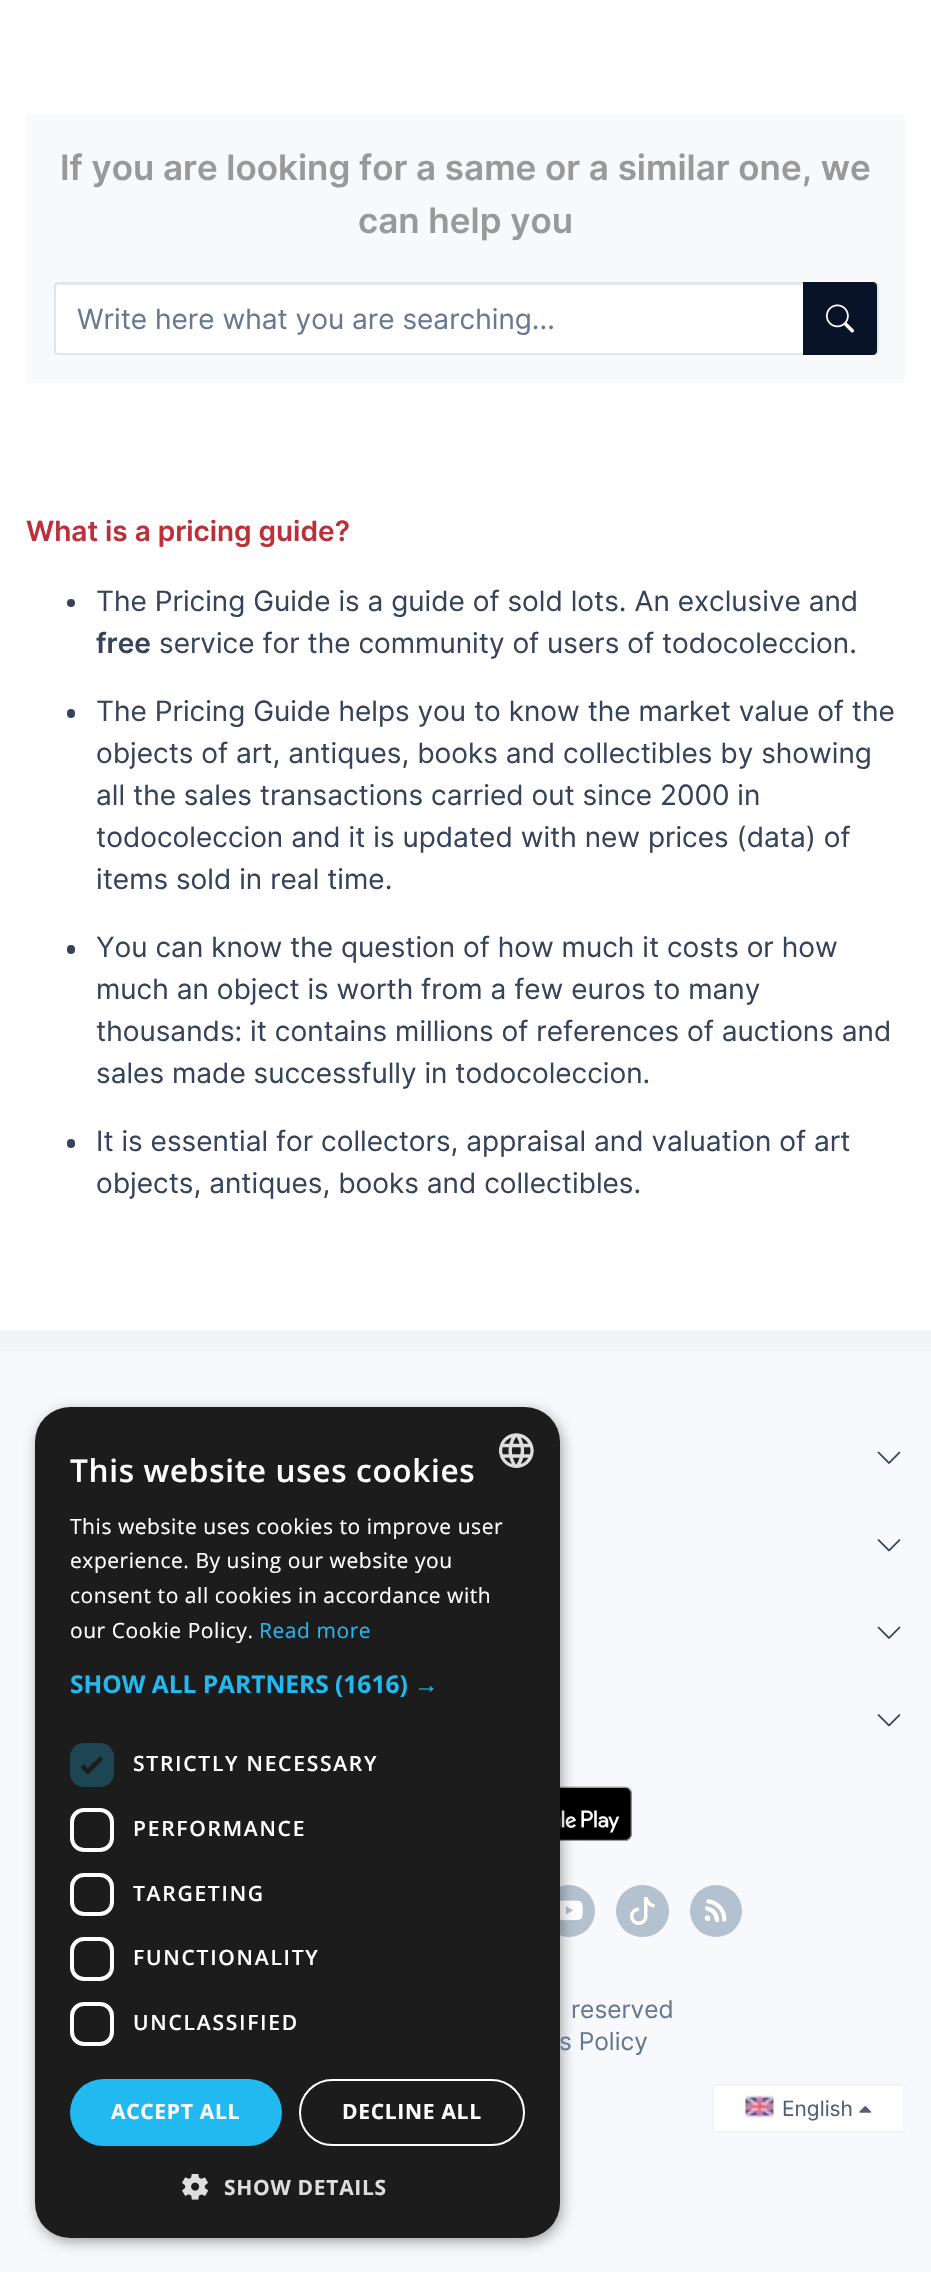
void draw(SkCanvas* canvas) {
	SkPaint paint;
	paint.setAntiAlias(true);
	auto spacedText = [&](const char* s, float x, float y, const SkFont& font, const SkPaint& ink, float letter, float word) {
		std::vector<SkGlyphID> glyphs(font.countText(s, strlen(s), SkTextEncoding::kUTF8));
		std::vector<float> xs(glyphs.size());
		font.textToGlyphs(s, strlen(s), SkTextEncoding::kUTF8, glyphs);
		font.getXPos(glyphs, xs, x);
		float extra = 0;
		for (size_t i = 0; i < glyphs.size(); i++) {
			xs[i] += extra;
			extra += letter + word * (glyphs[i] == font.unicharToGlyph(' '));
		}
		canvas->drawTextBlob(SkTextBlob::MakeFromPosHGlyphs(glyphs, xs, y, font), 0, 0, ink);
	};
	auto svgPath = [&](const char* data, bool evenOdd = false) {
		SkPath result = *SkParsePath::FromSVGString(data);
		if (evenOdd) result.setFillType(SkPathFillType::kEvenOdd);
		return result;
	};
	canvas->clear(0xffffffff);
	paint.setColor(0xfff8f9fa);
	canvas->drawRect(SkRect::MakeXYWH(26, 114, 879, 269), paint);
	SkFont f1(fontMgr->matchFamilyStyle("Inter", SkFontStyle(600, SkFontStyle::kNormal_Width, SkFontStyle::kUpright_Slant)), 35);
	f1.setSubpixel(true);
	paint.setColor(0xff999999);
	canvas->drawString("If you are looking for a same or a similar one, we", 60, 180, f1, paint);
	canvas->drawString("can help you", 358, 233, f1, paint);
	paint.setColor(0xffffffff);
	canvas->drawRoundRect(SkRect::MakeXYWH(56, 284, 821, 70), 2, 2, paint);
	paint.setColor(0xffececec);
	canvas->drawPath(svgPath("M58 285H875C876 285 877 286 877 287C877 286 877 284 875 284H58C56 284 56 286 56 287C56 286 57 285 58 285Z"), paint);
	paint.setStroke(true);
	paint.setStrokeWidth(2);
	paint.setColor(0xffdfe5ec);
	canvas->drawRoundRect(SkRect::MakeXYWH(55, 283, 823, 71), 3, 3, paint);
	SkFont f2(fontMgr->matchFamilyStyle("Inter", SkFontStyle::Normal()), 28);
	f2.setSubpixel(true);
	paint.setStroke(false);
	paint.setColor(0xff687792);
	canvas->drawString("Write here what you are searching...", 77, 329, f2, paint);
	paint.setColor(0xff081327);
	canvas->drawPath(svgPath("M804 283H873C874.5 283 876 284.5 876 286V351C876 352.5 874.5 354 873 354H804Z"), paint);
	paint.setStroke(true);
	canvas->drawPath(svgPath("M804 283H873C874.5 283 876 284.5 876 286V351C876 352.5 874.5 354 873 354H804Z"), paint);
	canvas->drawImageRect(SkImages::DeferredFromEncodedData(SkData::MakeFromFileName("img1.png")), SkRect::MakeXYWH(826, 304, 28, 29), SkSamplingOptions());
	SkFont f3(fontMgr->matchFamilyStyle("Inter", SkFontStyle(600, SkFontStyle::kNormal_Width, SkFontStyle::kUpright_Slant)), 28);
	f3.setSubpixel(true);
	paint.setStroke(false);
	paint.setColor(0xffbb3039);
	canvas->drawString("What is a pricing guide?", 26, 541, f3, paint);
	paint.setColor(0xff36435a);
	canvas->drawCircle(71, 603, 4, paint);
	canvas->drawString("The Pricing Guide is a guide of sold lots. An exclusive and", 96, 611, f2, paint);
	canvas->drawString("free", 96, 653, f3, paint);
	canvas->drawString("service for the community of users of todocoleccion.", 159, 653, f2, paint);
	canvas->drawRoundRect(SkRect::MakeXYWH(67, 709, 8, 9), 4, 4, paint);
	canvas->drawString("The Pricing Guide helps you to know the market value of the", 96, 721, f2, paint);
	canvas->drawString("objects of art, antiques, books and collectibles by showing", 96, 763, f2, paint);
	canvas->drawString("all the sales transactions carried out since 2000 in", 96, 805, f2, paint);
	canvas->drawString("todocoleccion and it is updated with new prices (data) of", 96, 847, f2, paint);
	canvas->drawString("items sold in real time.", 96, 889, f2, paint);
	canvas->drawRoundRect(SkRect::MakeXYWH(67, 945, 8, 9), 4, 4, paint);
	canvas->drawString("You can know the question of how much it costs or how", 96, 957, f2, paint);
	canvas->drawString("much an object is worth from a few euros to many", 96, 999, f2, paint);
	canvas->drawString("thousands: it contains millions of references of auctions and", 96, 1041, f2, paint);
	canvas->drawString("sales made successfully in todocoleccion.", 96, 1083, f2, paint);
	canvas->drawRoundRect(SkRect::MakeXYWH(67, 1139, 8, 9), 4, 4, paint);
	canvas->drawString("It is essential for collectors, appraisal and valuation of art", 96, 1151, f2, paint);
	canvas->drawString("objects, antiques, books and collectibles.", 96, 1193, f2, paint);
	paint.setColor(0xfff8f9fc);
	canvas->drawRect(SkRect::MakeXYWH(0, 1351, 931, 921), paint);
	canvas->drawImageRect(SkImages::DeferredFromEncodedData(SkData::MakeFromFileName("img6.png")), SkRect::MakeXYWH(560, 1786, 72, 55), SkSamplingOptions());
	paint.setColor(0xffb4c1cf);
	canvas->drawCircle(569, 1911, 26, paint);
	canvas->drawImageRect(SkImages::DeferredFromEncodedData(SkData::MakeFromFileName("img7.png")), SkRect::MakeXYWH(560, 1900, 23, 21), SkSamplingOptions());
	paint.setColor(0x59000000);
	paint.setMaskFilter(SkMaskFilter::MakeBlur(kNormal_SkBlurStyle, 7));
	canvas->drawRoundRect(SkRect::MakeXYWH(37, 1411, 525, 831), 35, 35, paint);
	paint.setMaskFilter(nullptr);
	paint.setColor(0xff1c1c1c);
	canvas->drawRoundRect(SkRect::MakeXYWH(35, 1407, 525, 831), 35, 35, paint);
	canvas->drawImageRect(SkImages::DeferredFromEncodedData(SkData::MakeFromFileName("img2.png")), SkRect::MakeXYWH(499, 1433, 35, 35), SkSamplingOptions());
	SkFont f4(fontMgr->matchFamilyStyle("Open Sans", SkFontStyle(600, SkFontStyle::kNormal_Width, SkFontStyle::kUpright_Slant)), 31.5);
	f4.setSubpixel(true);
	paint.setColor(0xffffffff);
	spacedText("This website uses cookies", 70, 1482, f4, paint, 0.7, 0);
	SkFont f5(fontMgr->matchFamilyStyle("Open Sans", SkFontStyle::Normal()), 21);
	f5.setSubpixel(true);
	spacedText("This website uses cookies to improve user", 70, 1534, f5, paint, 0.55, 0);
	spacedText("experience. By using our website you", 70, 1568, f5, paint, 0.55, 0);
	spacedText("consent to all cookies in accordance with", 70, 1603, f5, paint, 0.55, 0);
	spacedText("our Cookie Policy.", 70, 1638, f5, paint, 0.55, 0);
	paint.setColor(0xff22b8f0);
	spacedText("Read more", 259, 1638, f5, paint, 0.55, 0);
	SkFont f6(fontMgr->matchFamilyStyle("Open Sans", SkFontStyle::Bold()), 24.5);
	f6.setSubpixel(true);
	canvas->drawString("SHOW ALL PARTNERS (1616)", 70, 1693, f6, paint);
	SkFont f7(fontMgr->matchFamilyStyle("Liberation Sans", SkFontStyle::Bold()), 24.5);
	f7.setSubpixel(true);
	canvas->drawString("→", 414, 1693, f7, paint);
	paint.setColor(0xff1e4553);
	canvas->drawRoundRect(SkRect::MakeXYWH(70, 1743, 44, 44), 14, 14, paint);
	paint.setStroke(true);
	paint.setStrokeWidth(4.6);
	paint.setColor(0xff1c1c1c);
	canvas->drawPath(svgPath("M82 1766L88 1771.5L101.5 1758"), paint);
	SkFont f8(fontMgr->matchFamilyStyle("Open Sans", SkFontStyle(600, SkFontStyle::kNormal_Width, SkFontStyle::kUpright_Slant)), 21);
	f8.setSubpixel(true);
	paint.setStroke(false);
	paint.setColor(0xffffffff);
	spacedText("STRICTLY NECESSARY", 133, 1771, f8, paint, 1.75, 0);
	paint.setStroke(true);
	paint.setStrokeWidth(4);
	canvas->drawRoundRect(SkRect::MakeXYWH(72, 1810, 40, 40), 12, 12, paint);
	paint.setStroke(false);
	spacedText("PERFORMANCE", 133, 1836, f8, paint, 1.75, 0);
	paint.setStroke(true);
	canvas->drawRoundRect(SkRect::MakeXYWH(72, 1875, 40, 39), 12, 12, paint);
	paint.setStroke(false);
	spacedText("TARGETING", 133, 1901, f8, paint, 1.75, 0);
	paint.setStroke(true);
	canvas->drawRoundRect(SkRect::MakeXYWH(72, 1939, 40, 40), 12, 12, paint);
	paint.setStroke(false);
	spacedText("FUNCTIONALITY", 133, 1965, f8, paint, 1.75, 0);
	paint.setStroke(true);
	canvas->drawRoundRect(SkRect::MakeXYWH(72, 2004, 40, 40), 12, 12, paint);
	paint.setStroke(false);
	spacedText("UNCLASSIFIED", 133, 2030, f8, paint, 1.75, 0);
	paint.setColor(0xff22b8f0);
	canvas->drawRoundRect(SkRect::MakeXYWH(70, 2079, 212, 67), 33.5, 33.5, paint);
	SkFont f9(fontMgr->matchFamilyStyle("Open Sans", SkFontStyle::Bold()), 21);
	f9.setSubpixel(true);
	paint.setColor(0xffffffff);
	spacedText("ACCEPT ALL", 111, 2119, f9, paint, 0.7, 0);
	paint.setStroke(true);
	paint.setStrokeWidth(2);
	canvas->drawRoundRect(SkRect::MakeXYWH(300, 2080, 224, 65), 32.5, 32.5, paint);
	paint.setStroke(false);
	spacedText("DECLINE ALL", 342, 2119, f9, paint, 0.7, 0);
	canvas->drawImageRect(SkImages::DeferredFromEncodedData(SkData::MakeFromFileName("img3.png")), SkRect::MakeXYWH(182, 2174, 26, 26), SkSamplingOptions());
	paint.setColor(0xffdddddd);
	spacedText("SHOW DETAILS", 224, 2195, f9, paint, 0.7, 0);
	paint.setColor(0xfff2f4f8);
	canvas->drawRect(SkRect::MakeXYWH(0, 1330, 931, 21), paint);
	canvas->drawImageRect(SkImages::DeferredFromEncodedData(SkData::MakeFromFileName("img4.png")), SkRect::MakeXYWH(877, 1451, 24, 13), SkSamplingOptions());
	canvas->drawImageRect(SkImages::DeferredFromEncodedData(SkData::MakeFromFileName("img5.png")), SkRect::MakeXYWH(877, 1539, 24, 13), SkSamplingOptions());
	canvas->drawImageRect(SkImages::DeferredFromEncodedData(SkData::MakeFromFileName("img4.png")), SkRect::MakeXYWH(877, 1626, 24, 13), SkSamplingOptions());
	canvas->drawImageRect(SkImages::DeferredFromEncodedData(SkData::MakeFromFileName("img5.png")), SkRect::MakeXYWH(877, 1714, 24, 13), SkSamplingOptions());
	paint.setColor(0xffb4c1cf);
	canvas->drawRoundRect(SkRect::MakeXYWH(616, 1885, 53, 52), 26, 26, paint);
	canvas->drawImageRect(SkImages::DeferredFromEncodedData(SkData::MakeFromFileName("img8.png")), SkRect::MakeXYWH(630, 1897, 25, 28), SkSamplingOptions());
	canvas->drawCircle(716, 1911, 26, paint);
	canvas->drawImageRect(SkImages::DeferredFromEncodedData(SkData::MakeFromFileName("img9.png")), SkRect::MakeXYWH(704, 1899, 23, 24), SkSamplingOptions());
	SkFont f10(fontMgr->matchFamilyStyle("Inter", SkFontStyle::Normal()), 24.5);
	f10.setSubpixel(true);
	paint.setColor(0xff687792);
	canvas->drawString("reserved", 571, 2018, f10, paint);
	canvas->drawString("s Policy", 559, 2050, f10, paint);
	paint.setColor(0xffffffff);
	canvas->drawRect(SkRect::MakeXYWH(713, 2085, 191, 47), paint);
	paint.setStroke(true);
	paint.setColor(0xfff2f4f8);
	canvas->drawRect(SkRect::MakeXYWH(713, 2085, 191, 47), paint);
	canvas->drawImageRect(SkImages::DeferredFromEncodedData(SkData::MakeFromFileName("img10.png")), SkRect::MakeXYWH(745, 2095, 29, 23), SkSamplingOptions());
	SkFont f11(fontMgr->matchFamilyStyle("Inter", SkFontStyle::Normal()), 21);
	f11.setSubpixel(true);
	paint.setStroke(false);
	paint.setColor(0xff535f74);
	canvas->drawString("English", 782, 2116, f11, paint);
	canvas->drawImageRect(SkImages::DeferredFromEncodedData(SkData::MakeFromFileName("img11.png")), SkRect::MakeXYWH(859, 2106, 13, 7), SkSamplingOptions());
}
